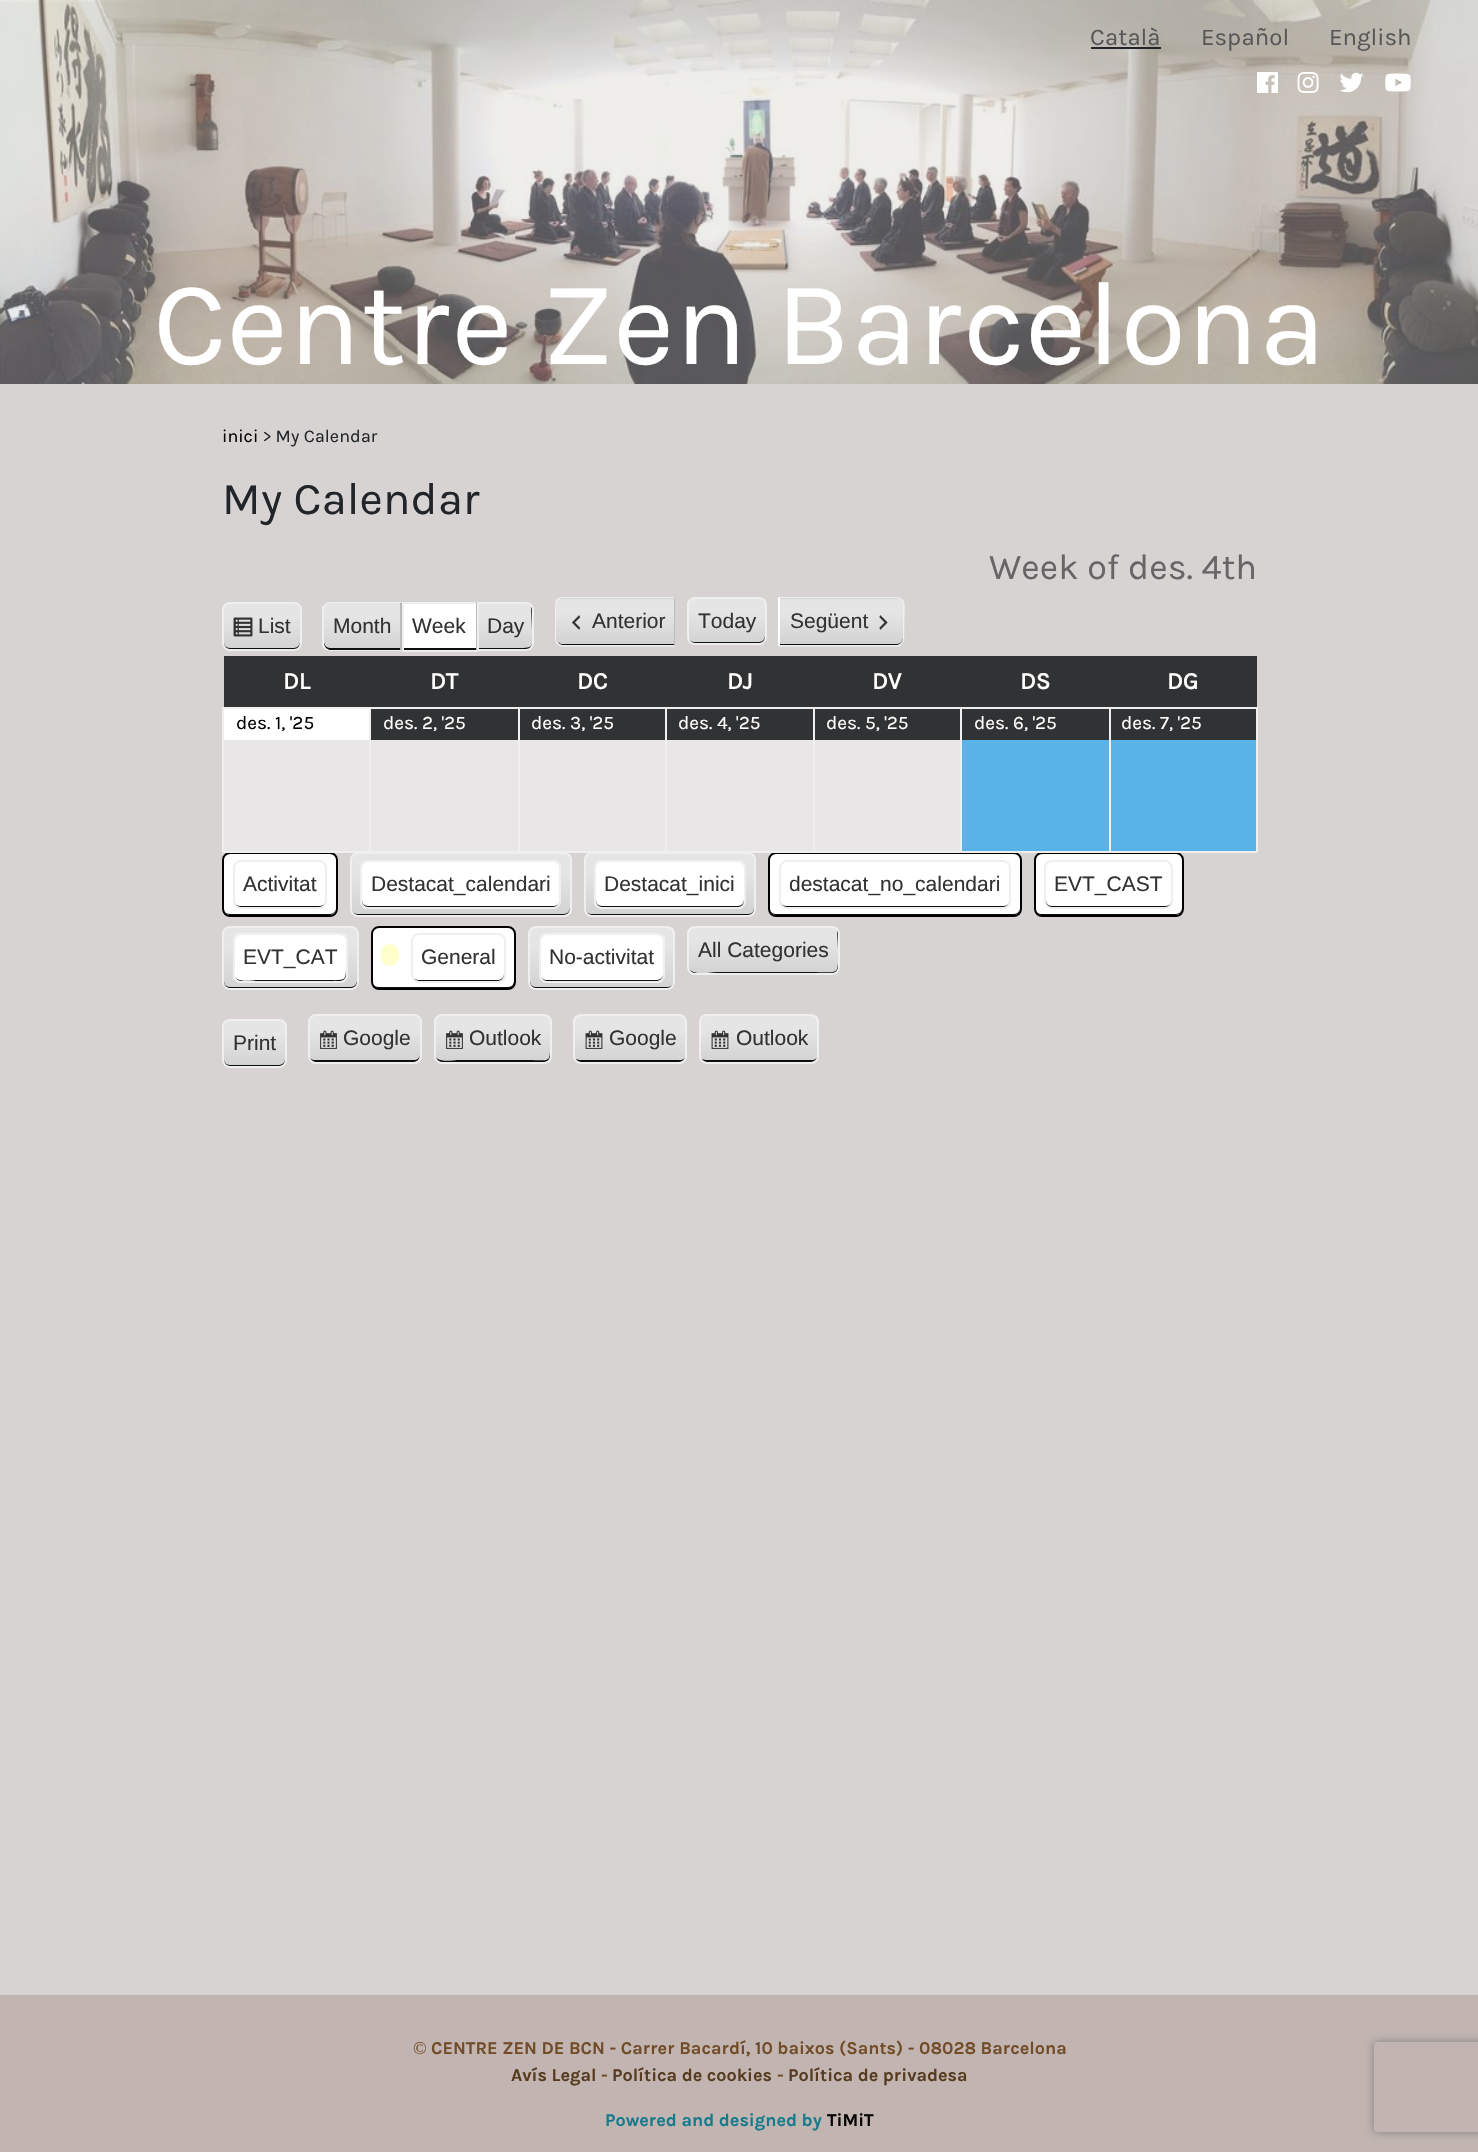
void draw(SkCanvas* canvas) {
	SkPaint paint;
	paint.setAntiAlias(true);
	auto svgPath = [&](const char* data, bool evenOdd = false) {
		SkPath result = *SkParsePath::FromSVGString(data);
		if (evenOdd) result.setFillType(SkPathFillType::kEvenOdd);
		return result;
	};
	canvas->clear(0xffd7d3d2);
	canvas->drawImageRect(SkImages::DeferredFromEncodedData(SkData::MakeFromFileName("img5.png")), SkRect::MakeXYWH(0, 0, 1478, 384), SkSamplingOptions());
	SkFont f1(fontMgr->matchFamilyStyle("Karla", SkFontStyle::Normal()), 24);
	f1.setSubpixel(true);
	paint.setColor(0xff585757);
	canvas->drawString("Català", 1090, 45, f1, paint);
	paint.setColor(0xff212529);
	canvas->drawRect(SkRect::MakeXYWH(1091, 47, 70, 2), paint);
	paint.setColor(0xff585757);
	canvas->drawString("Español", 1201, 45, f1, paint);
	canvas->drawString("English", 1329, 45, f1, paint);
	canvas->drawImageRect(SkImages::DeferredFromEncodedData(SkData::MakeFromFileName("img1.png")), SkRect::MakeXYWH(1257, 72, 21, 21), SkSamplingOptions());
	canvas->drawImageRect(SkImages::DeferredFromEncodedData(SkData::MakeFromFileName("img2.png")), SkRect::MakeXYWH(1297, 72, 22, 21), SkSamplingOptions());
	canvas->drawImageRect(SkImages::DeferredFromEncodedData(SkData::MakeFromFileName("img3.png")), SkRect::MakeXYWH(1340, 72, 24, 21), SkSamplingOptions());
	canvas->drawImageRect(SkImages::DeferredFromEncodedData(SkData::MakeFromFileName("img4.png")), SkRect::MakeXYWH(1385, 73, 26, 19), SkSamplingOptions());
	SkFont f2(fontMgr->matchFamilyStyle("Karla", SkFontStyle::Normal()), 120);
	f2.setSubpixel(true);
	paint.setColor(0xffffffff);
	canvas->drawString("Centre Zen Barcelona", 153, 364, f2, paint);
	SkFont f3(fontMgr->matchFamilyStyle("Karla", SkFontStyle::Normal()), 18);
	f3.setSubpixel(true);
	paint.setColor(0xff000000);
	canvas->drawString("inici", 222, 442, f3, paint);
	paint.setColor(0xff212529);
	canvas->drawString("> My Calendar", 263, 442, f3, paint);
	SkFont f4(fontMgr->matchFamilyStyle("Karla", SkFontStyle::Normal()), 45.5);
	f4.setSubpixel(true);
	canvas->drawString("My Calendar", 222, 514, f4, paint);
	SkFont f5(fontMgr->matchFamilyStyle("Karla", SkFontStyle::Normal()), 36);
	f5.setSubpixel(true);
	paint.setColor(0xff666666);
	canvas->drawString("Week of des. 4th", 989, 579, f5, paint);
	canvas->save();
	canvas->clipPath(svgPath("M230 602H294C298.5 602 302 605.5 302 610V643C302 647.5 298.5 651 294 651H230C225.5 651 222 647.5 222 643V610C222 605.5 225.5 602 230 602Z"), true);
	{
		const SkColor colors[] = {0xffd2d2d2, 0xffe5e5e5};
		const float stops[] = {0, 0.7};
		const SkPoint ends[] = {{262, 650}, {262, 603}};
		paint.setShader(SkGradientShader::MakeLinear(ends, colors, stops, 2, SkTileMode::kClamp));
		paint.setAlpha(255);
	}
	canvas->drawRect(SkRect::MakeXYWH(222, 603, 80, 47), paint);
	canvas->restore();
	paint.setShader(nullptr);
	paint.setColor(0xff0f0f0f);
	canvas->drawPath(svgPath("M224 642C224 652 232 650 241 650H283C292 650 300 652 300 642C300 645 297 648 294 648H230C226 648 224 645 224 642Z"), paint);
	paint.setStroke(true);
	paint.setStrokeWidth(2);
	paint.setColor(0xffefefef);
	canvas->drawRoundRect(SkRect::MakeXYWH(223, 603, 78, 47), 7, 7, paint);
	canvas->drawImageRect(SkImages::DeferredFromEncodedData(SkData::MakeFromFileName("img6.png")), SkRect::MakeXYWH(233, 617, 20, 20), SkSamplingOptions());
	SkFont f6(fontMgr->matchFamilyStyle("Liberation Sans", SkFontStyle::Normal()), 21);
	f6.setSubpixel(true);
	paint.setStroke(false);
	paint.setColor(0xff313233);
	canvas->drawString("List", 258, 633, f6, paint);
	canvas->save();
	canvas->clipPath(svgPath("M331 602H402V651H331C326.5 651 323 647.5 323 643V610C323 605.5 326.5 602 331 602Z"), true);
	{
		const SkColor colors[] = {0xffd2d2d2, 0xffe5e5e5};
		const float stops[] = {0, 0.7};
		const SkPoint ends[] = {{362, 650}, {362, 603}};
		paint.setShader(SkGradientShader::MakeLinear(ends, colors, stops, 2, SkTileMode::kClamp));
		paint.setAlpha(255);
	}
	canvas->drawRect(SkRect::MakeXYWH(324, 603, 76, 47), paint);
	canvas->restore();
	paint.setShader(nullptr);
	paint.setColor(0xff0f0f0f);
	canvas->drawPath(svgPath("M324 642V644C324 647 327 650 330 650H401V603H400V648H330C327 648 324 645 324 642Z"), paint);
	paint.setColor(0xffefefef);
	canvas->drawPath(svgPath("M330 602C328 602 326 603 325 604L326 605L329 603H400V604L402 602Z"), paint);
	paint.setColor(0xffbbbbbb);
	canvas->drawPath(svgPath("M402 651V602L400 604V649Z"), paint);
	paint.setColor(0xffefefef);
	canvas->drawPath(svgPath("M402 651L400 649V650H329L326 648L324 649C326 650 328 651 330 651Z"), paint);
	canvas->drawPath(svgPath("M322 607L325 604L326 605C325 606 324 608 324 609V644C324 645 325 647 326 648L324 649L322 646Z"), paint);
	paint.setColor(0xff313233);
	canvas->drawString("Month", 333, 633, f6, paint);
	paint.setColor(0xffffffff);
	canvas->drawRect(SkRect::MakeXYWH(404, 604, 72, 44), paint);
	paint.setColor(0xff0f0f0f);
	canvas->drawRect(SkRect::MakeXYWH(404, 648, 72, 2), paint);
	paint.setColor(0xffefefef);
	canvas->drawRect(SkRect::MakeXYWH(402, 602, 75, 2), paint);
	paint.setColor(0xffbbbbbb);
	canvas->drawRect(SkRect::MakeXYWH(476, 602, 1, 49), paint);
	paint.setColor(0xffefefef);
	canvas->drawRect(SkRect::MakeXYWH(402, 650, 75, 2), paint);
	canvas->drawRect(SkRect::MakeXYWH(402, 602, 2, 49), paint);
	paint.setColor(0xff313233);
	canvas->drawString("Week", 412, 633, f6, paint);
	canvas->save();
	canvas->clipPath(svgPath("M477 602H526C530.5 602 534 605.5 534 610V643C534 647.5 530.5 651 526 651H477Z"), true);
	{
		const SkColor colors[] = {0xf2d2d2d2, 0xf2e6e6e6};
		const float stops[] = {0, 0.7};
		const SkPoint ends[] = {{506, 650}, {506, 603}};
		paint.setShader(SkGradientShader::MakeLinear(ends, colors, stops, 2, SkTileMode::kClamp));
		paint.setAlpha(255);
	}
	canvas->drawRect(SkRect::MakeXYWH(479, 603, 55, 47), paint);
	canvas->restore();
	paint.setShader(nullptr);
	paint.setColor(0xff0f0f0f);
	canvas->drawPath(svgPath("M479 648V650H527C530 650 533 647 533 644V609C533 607 532 606 531 605L532 631C532 647 535 648 518 648Z"), paint);
	paint.setStroke(true);
	paint.setColor(0xffefefef);
	canvas->drawPath(svgPath("M478 603H526C530 603 533 606 533 610V643C533 647 530 650 526 650H478Z"), paint);
	paint.setStroke(false);
	paint.setColor(0xff313233);
	canvas->drawString("Day", 487, 633, f6, paint);
	canvas->save();
	canvas->clipPath(svgPath("M563 597H675V647H563C558.5 647 555 643.5 555 639V605C555 600.5 558.5 597 563 597Z"), true);
	{
		const SkColor colors[] = {0xffd2d2d2, 0xffe5e5e5};
		const float stops[] = {0, 0.7};
		const SkPoint ends[] = {{615, 599}, {615, 552}};
		paint.setShader(SkGradientShader::MakeLinear(ends, colors, stops, 2, SkTileMode::kClamp));
		paint.setAlpha(255);
	}
	canvas->drawRect(SkRect::MakeXYWH(555, 597, 120, 2), paint);
	{
		const SkColor colors[] = {0xffd2d2d2, 0xffe5e5e5};
		const float stops[] = {0, 0.7};
		const SkPoint ends[] = {{615, 645}, {615, 599}};
		paint.setShader(SkGradientShader::MakeLinear(ends, colors, stops, 2, SkTileMode::kClamp));
		paint.setAlpha(255);
	}
	canvas->drawRect(SkRect::MakeXYWH(555, 599, 119, 46), paint);
	{
		const SkColor colors[] = {0xffd2d2d2, 0xffe5e5e5};
		const float stops[] = {0, 0.7};
		const SkPoint ends[] = {{615, 692}, {615, 645}};
		paint.setShader(SkGradientShader::MakeLinear(ends, colors, stops, 2, SkTileMode::kClamp));
		paint.setAlpha(255);
	}
	canvas->drawRect(SkRect::MakeXYWH(555, 645, 120, 2), paint);
	canvas->restore();
	paint.setShader(nullptr);
	paint.setColor(0xff0f0f0f);
	canvas->drawPath(svgPath("M558 642C559 644 561 645 563 645H674V644H561Z"), paint);
	paint.setColor(0xffefefef);
	canvas->drawPath(svgPath("M562 597C560 597 558 598 557 599L558 600L561 598H674L675 597Z"), paint);
	paint.setColor(0xffbbbbbb);
	canvas->drawPath(svgPath("M675 597L674 598V645L675 646Z"), paint);
	paint.setColor(0xffefefef);
	canvas->drawPath(svgPath("M674 646H561L557 644L558 643L561 645H674Z"), paint);
	canvas->drawPath(svgPath("M555 604V639C555 641 556 643 557 644L558 643C557 642 556 641 556 639V604C556 602 557 601 558 600L557 599C556 600 555 602 555 604Z"), paint);
	canvas->drawImageRect(SkImages::DeferredFromEncodedData(SkData::MakeFromFileName("img7.png")), SkRect::MakeXYWH(571, 615, 10, 15), SkSamplingOptions());
	paint.setColor(0xff313233);
	canvas->drawString("Anterior", 592, 628, f6, paint);
	canvas->save();
	canvas->clipPath(svgPath("M695 597H759C763.5 597 767 600.5 767 605V637C767 641.5 763.5 645 759 645H695C690.5 645 687 641.5 687 637V605C687 600.5 690.5 597 695 597Z"), true);
	{
		const SkColor colors[] = {0xffd2d2d2, 0xffe5e5e5};
		const float stops[] = {0, 0.7};
		const SkPoint ends[] = {{727, 644}, {727, 599}};
		paint.setShader(SkGradientShader::MakeLinear(ends, colors, stops, 2, SkTileMode::kClamp));
		paint.setAlpha(255);
	}
	canvas->drawRect(SkRect::MakeXYWH(687, 599, 80, 45), paint);
	canvas->restore();
	paint.setShader(nullptr);
	paint.setColor(0xff0f0f0f);
	canvas->drawPath(svgPath("M689 639C690 642 692 644 695 644H759C762 644 765 641 765 638V636C765 639 762 642 759 642H694C692 642 690 641 689 639Z"), paint);
	paint.setStroke(true);
	paint.setColor(0xffefefef);
	canvas->drawRoundRect(SkRect::MakeXYWH(688, 598, 78, 46), 7, 7, paint);
	paint.setStroke(false);
	paint.setColor(0xff313233);
	canvas->drawString("Today", 698, 628, f6, paint);
	canvas->save();
	canvas->clipPath(svgPath("M779 597H897C901.5 597 905 600.5 905 605V639C905 643.5 901.5 647 897 647H779Z"), true);
	{
		const SkColor colors[] = {0xffd2d2d2, 0xffe5e5e5};
		const float stops[] = {0, 0.7};
		const SkPoint ends[] = {{842, 599}, {842, 552}};
		paint.setShader(SkGradientShader::MakeLinear(ends, colors, stops, 2, SkTileMode::kClamp));
		paint.setAlpha(255);
	}
	canvas->drawRect(SkRect::MakeXYWH(779, 597, 126, 2), paint);
	{
		const SkColor colors[] = {0xffd2d2d2, 0xffe5e5e5};
		const float stops[] = {0, 0.7};
		const SkPoint ends[] = {{842, 645}, {842, 599}};
		paint.setShader(SkGradientShader::MakeLinear(ends, colors, stops, 2, SkTileMode::kClamp));
		paint.setAlpha(255);
	}
	canvas->drawRect(SkRect::MakeXYWH(780, 599, 125, 46), paint);
	{
		const SkColor colors[] = {0xffd2d2d2, 0xffe5e5e5};
		const float stops[] = {0, 0.7};
		const SkPoint ends[] = {{842, 692}, {842, 645}};
		paint.setShader(SkGradientShader::MakeLinear(ends, colors, stops, 2, SkTileMode::kClamp));
		paint.setAlpha(255);
	}
	canvas->drawRect(SkRect::MakeXYWH(779, 645, 126, 2), paint);
	canvas->restore();
	paint.setShader(nullptr);
	paint.setColor(0xff0f0f0f);
	canvas->drawPath(svgPath("M780 644V645H897C900 645 903 642 903 639V638C903 641 900 644 897 644Z"), paint);
	paint.setColor(0xffefefef);
	canvas->drawPath(svgPath("M780 598H897C899 598 900 599 901 600L902 599L899 597H778Z"), paint);
	canvas->drawPath(svgPath("M902 599C903 600 904 602 904 604V639C904 641 903 643 902 644L901 643C902 642 903 640 903 639V604C903 603 902 601 901 600Z"), paint);
	canvas->drawPath(svgPath("M902 644L898 646H779L780 645H898L901 643Z"), paint);
	paint.setColor(0xffffffff);
	canvas->drawPath(svgPath("M779 646H778V597L780 598V645Z"), paint);
	paint.setColor(0xff313233);
	canvas->drawString("Següent", 790, 628, f6, paint);
	canvas->drawImageRect(SkImages::DeferredFromEncodedData(SkData::MakeFromFileName("img8.png")), SkRect::MakeXYWH(879, 615, 9, 15), SkSamplingOptions());
	canvas->drawRect(SkRect::MakeXYWH(224, 656, 1033, 51), paint);
	SkFont f7(fontMgr->matchFamilyStyle("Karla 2", SkFontStyle::Bold()), 24);
	f7.setSubpixel(true);
	paint.setColor(0xffffffff);
	canvas->drawString("DL", 283, 689, f7, paint);
	canvas->drawString("DT", 430, 689, f7, paint);
	canvas->drawString("DC", 577, 689, f7, paint);
	canvas->drawString("DJ", 727, 689, f7, paint);
	canvas->drawString("DV", 872, 689, f7, paint);
	canvas->drawString("DS", 1020, 689, f7, paint);
	canvas->drawString("DG", 1167, 689, f7, paint);
	paint.setColor(0xffe8e6e6);
	canvas->drawRect(SkRect::MakeXYWH(224, 740, 145, 111), paint);
	paint.setColor(0xffefefef);
	canvas->drawRect(SkRect::MakeXYWH(1109, 707, 148, 2), paint);
	canvas->drawRect(SkRect::MakeXYWH(1256, 707, 2, 145), paint);
	paint.setColor(0xffffffff);
	canvas->drawRoundRect(SkRect::MakeXYWH(1034, 852, 150, 65), 8, 8, paint);
	paint.setColor(0xff0f0f0f);
	canvas->drawPath(svgPath("M1035 908V909C1035 912 1038 915 1041 915H1176C1179 915 1182 912 1182 909V908C1182 911 1179 914 1176 914H1041C1038 914 1035 911 1035 908Z"), paint);
	paint.setStroke(true);
	paint.setColor(0xff000000);
	canvas->drawRoundRect(SkRect::MakeXYWH(1035, 853, 148, 63), 7, 7, paint);
	paint.setStroke(false);
	paint.setColor(0xffefefef);
	canvas->drawRect(SkRect::MakeXYWH(1109, 851, 148, 2), paint);
	canvas->drawRect(SkRect::MakeXYWH(1109, 707, 2, 145), paint);
	canvas->drawRect(SkRect::MakeXYWH(960, 707, 150, 2), paint);
	paint.setColor(0xffffffff);
	canvas->drawRoundRect(SkRect::MakeXYWH(768, 852, 254, 65), 8, 8, paint);
	paint.setColor(0xff0f0f0f);
	canvas->drawPath(svgPath("M770 908C770 912 772 915 776 915H1015C1019 914 1020 911 1020 908C1020 911 1017 914 1014 914H776C772 914 770 911 770 908Z"), paint);
	paint.setStroke(true);
	paint.setColor(0xff000000);
	canvas->drawRoundRect(SkRect::MakeXYWH(769, 853, 252, 63), 7, 7, paint);
	paint.setStroke(false);
	paint.setColor(0xffefefef);
	canvas->drawRect(SkRect::MakeXYWH(960, 851, 150, 2), paint);
	canvas->drawRect(SkRect::MakeXYWH(960, 707, 2, 145), paint);
	canvas->drawRect(SkRect::MakeXYWH(813, 707, 149, 2), paint);
	canvas->drawRect(SkRect::MakeXYWH(813, 851, 149, 2), paint);
	canvas->drawRect(SkRect::MakeXYWH(813, 707, 2, 145), paint);
	canvas->drawRect(SkRect::MakeXYWH(665, 707, 150, 2), paint);
	canvas->save();
	canvas->clipPath(svgPath("M592 852H748C752.5 852 756 855.5 756 860V909C756 913.5 752.5 917 748 917H592C587.5 917 584 913.5 584 909V860C584 855.5 587.5 852 592 852Z"), true);
	{
		const SkColor colors[] = {0xffd2d2d2, 0xffe5e5e5};
		const float stops[] = {0, 0.7};
		const SkPoint ends[] = {{670, 915}, {670, 854}};
		paint.setShader(SkGradientShader::MakeLinear(ends, colors, stops, 2, SkTileMode::kClamp));
		paint.setAlpha(255);
	}
	canvas->drawRect(SkRect::MakeXYWH(584, 854, 172, 61), paint);
	canvas->restore();
	paint.setShader(nullptr);
	paint.setColor(0xff0f0f0f);
	canvas->drawPath(svgPath("M585 908V909C585 912 588 915 591 915H749C752 915 755 912 755 909V860C755 859 755 857 754 856V908C754 911 752 914 748 914H591C588 914 585 911 585 908Z"), paint);
	paint.setStroke(true);
	paint.setColor(0xffefefef);
	canvas->drawRoundRect(SkRect::MakeXYWH(585, 853, 170, 63), 7, 7, paint);
	paint.setStroke(false);
	canvas->drawRect(SkRect::MakeXYWH(665, 851, 150, 2), paint);
	canvas->drawRect(SkRect::MakeXYWH(665, 707, 2, 145), paint);
	canvas->drawRect(SkRect::MakeXYWH(518, 707, 148, 2), paint);
	canvas->save();
	canvas->clipPath(svgPath("M358 852H564C568.5 852 572 855.5 572 860V909C572 913.5 568.5 917 564 917H358C353.5 917 350 913.5 350 909V860C350 855.5 353.5 852 358 852Z"), true);
	{
		const SkColor colors[] = {0xffd2d2d2, 0xffe5e5e5};
		const float stops[] = {0, 0.7};
		const SkPoint ends[] = {{461, 915}, {461, 854}};
		paint.setShader(SkGradientShader::MakeLinear(ends, colors, stops, 2, SkTileMode::kClamp));
		paint.setAlpha(255);
	}
	canvas->drawRect(SkRect::MakeXYWH(350, 854, 222, 61), paint);
	canvas->restore();
	paint.setShader(nullptr);
	paint.setColor(0xff0f0f0f);
	canvas->drawPath(svgPath("M351 908V909C351 912 354 915 357 915H564C567 915 570 912 570 909V908C570 911 567 914 564 914H357C354 914 351 911 351 908Z"), paint);
	paint.setStroke(true);
	paint.setColor(0xffefefef);
	canvas->drawRoundRect(SkRect::MakeXYWH(351, 853, 220, 63), 7, 7, paint);
	paint.setStroke(false);
	canvas->drawRect(SkRect::MakeXYWH(518, 851, 148, 2), paint);
	canvas->drawRect(SkRect::MakeXYWH(518, 707, 2, 145), paint);
	canvas->drawRect(SkRect::MakeXYWH(369, 707, 150, 2), paint);
	canvas->drawRect(SkRect::MakeXYWH(369, 851, 150, 1), paint);
	canvas->drawRect(SkRect::MakeXYWH(369, 707, 2, 145), paint);
	canvas->drawRect(SkRect::MakeXYWH(222, 707, 149, 2), paint);
	paint.setColor(0xffffffff);
	canvas->drawRoundRect(SkRect::MakeXYWH(222, 852, 116, 65), 8, 8, paint);
	paint.setColor(0xff0f0f0f);
	canvas->drawPath(svgPath("M224 908C224 919 241 915 247 915H313C319 915 336 919 336 908C336 911 333 914 330 914H230C226 914 224 911 224 908Z"), paint);
	paint.setStroke(true);
	paint.setColor(0xff000000);
	canvas->drawRoundRect(SkRect::MakeXYWH(223, 853, 114, 63), 7, 7, paint);
	paint.setStroke(false);
	paint.setColor(0xffefefef);
	canvas->drawRect(SkRect::MakeXYWH(222, 851, 149, 2), paint);
	canvas->drawRect(SkRect::MakeXYWH(222, 707, 2, 145), paint);
	paint.setColor(0xffffffff);
	canvas->drawRect(SkRect::MakeXYWH(224, 709, 145, 31), paint);
	SkFont f8(fontMgr->matchFamilyStyle("Karla", SkFontStyle::Normal()), 19);
	f8.setSubpixel(true);
	paint.setColor(0xff000000);
	canvas->drawString("des. 1, '25", 236, 729, f8, paint);
	paint.setColor(0xffe8e6e6);
	canvas->drawRect(SkRect::MakeXYWH(371, 740, 147, 111), paint);
	paint.setColor(0xff313233);
	canvas->drawRect(SkRect::MakeXYWH(371, 709, 147, 31), paint);
	paint.setColor(0xffffffff);
	canvas->drawString("des. 2, '25", 383, 729, f8, paint);
	paint.setColor(0xffe8e6e6);
	canvas->drawRect(SkRect::MakeXYWH(520, 740, 145, 111), paint);
	paint.setColor(0xff313233);
	canvas->drawRect(SkRect::MakeXYWH(520, 709, 145, 31), paint);
	paint.setColor(0xffffffff);
	canvas->drawString("des. 3, '25", 531, 729, f8, paint);
	paint.setColor(0xffe8e6e6);
	canvas->drawRect(SkRect::MakeXYWH(667, 740, 146, 111), paint);
	paint.setColor(0xff313233);
	canvas->drawRect(SkRect::MakeXYWH(667, 709, 146, 31), paint);
	paint.setColor(0xffffffff);
	canvas->drawString("des. 4, '25", 678, 729, f8, paint);
	paint.setColor(0xffe8e6e6);
	canvas->drawRect(SkRect::MakeXYWH(815, 740, 145, 111), paint);
	paint.setColor(0xff313233);
	canvas->drawRect(SkRect::MakeXYWH(815, 709, 145, 31), paint);
	paint.setColor(0xffffffff);
	canvas->drawString("des. 5, '25", 826, 729, f8, paint);
	paint.setColor(0xff59b2e8);
	canvas->drawRect(SkRect::MakeXYWH(962, 740, 147, 111), paint);
	paint.setColor(0xff313233);
	canvas->drawRect(SkRect::MakeXYWH(962, 709, 147, 31), paint);
	paint.setColor(0xffffffff);
	canvas->drawString("des. 6, '25", 974, 729, f8, paint);
	paint.setColor(0xff59b2e8);
	canvas->drawRect(SkRect::MakeXYWH(1111, 740, 145, 111), paint);
	paint.setColor(0xff313233);
	canvas->drawRect(SkRect::MakeXYWH(1111, 709, 145, 31), paint);
	paint.setColor(0xffffffff);
	canvas->drawString("des. 7, '25", 1121, 729, f8, paint);
	paint.setColor(0xff0f0f0f);
	canvas->drawPath(svgPath("M234 900C234 911 244 908 253 908H307C316 908 326 911 326 900C326 903 323 906 320 906H240C237 906 234 903 234 900Z"), paint);
	paint.setStroke(true);
	paint.setColor(0xffefefef);
	canvas->drawRoundRect(SkRect::MakeXYWH(234, 861, 92, 47), 7, 7, paint);
	paint.setStroke(false);
	paint.setColor(0xff313233);
	canvas->drawString("Activitat", 243, 891, f6, paint);
	paint.setColor(0xffffffff);
	canvas->drawRoundRect(SkRect::MakeXYWH(360, 860, 201, 49), 8, 8, paint);
	paint.setColor(0xff0f0f0f);
	canvas->drawPath(svgPath("M362 900V902C362 905 365 908 368 908H554C557 908 560 905 560 902V900C560 903 557 906 554 906H368C364 906 362 903 362 900Z"), paint);
	paint.setStroke(true);
	paint.setColor(0xffefefef);
	canvas->drawRoundRect(SkRect::MakeXYWH(361, 861, 199, 47), 7, 7, paint);
	paint.setStroke(false);
	paint.setColor(0xff313233);
	canvas->drawString("Destacat_calendari", 371, 891, f6, paint);
	paint.setColor(0xffffffff);
	canvas->drawRoundRect(SkRect::MakeXYWH(594, 860, 152, 49), 8, 8, paint);
	paint.setColor(0xff0f0f0f);
	canvas->drawPath(svgPath("M596 900V902C596 905 599 908 602 908H738C741 908 744 905 744 902V900C744 903 741 906 738 906H602C598 906 596 903 596 900Z"), paint);
	paint.setStroke(true);
	paint.setColor(0xffefefef);
	canvas->drawRoundRect(SkRect::MakeXYWH(595, 861, 150, 47), 7, 7, paint);
	paint.setStroke(false);
	paint.setColor(0xff313233);
	canvas->drawString("Destacat_inici", 604, 891, f6, paint);
	paint.setColor(0xff0f0f0f);
	canvas->drawPath(svgPath("M780 900V902C780 905 783 908 786 908H1004C1007 908 1010 905 1010 902V900C1010 903 1007 906 1004 906H786C783 906 780 903 780 900Z"), paint);
	paint.setStroke(true);
	paint.setColor(0xffefefef);
	canvas->drawRoundRect(SkRect::MakeXYWH(780, 861, 230, 47), 7, 7, paint);
	paint.setStroke(false);
	paint.setColor(0xff313233);
	canvas->drawString("destacat_no_calendari", 789, 891, f6, paint);
	paint.setColor(0xff0f0f0f);
	canvas->drawPath(svgPath("M1046 900V902C1046 905 1049 908 1052 908H1166C1169 908 1172 905 1172 902V900C1172 903 1169 906 1166 906H1052C1048 906 1046 903 1046 900Z"), paint);
	paint.setStroke(true);
	paint.setColor(0xffefefef);
	canvas->drawRoundRect(SkRect::MakeXYWH(1045, 861, 127, 47), 7, 7, paint);
	paint.setStroke(false);
	paint.setColor(0xff313233);
	canvas->drawString("EVT_CAST", 1054, 891, f6, paint);
	canvas->save();
	canvas->clipPath(svgPath("M230 926H351C355.5 926 359 929.5 359 934V982C359 986.5 355.5 990 351 990H230C225.5 990 222 986.5 222 982V934C222 929.5 225.5 926 230 926Z"), true);
	{
		const SkColor colors[] = {0xffd2d2d2, 0xffe5e5e5};
		const float stops[] = {0, 0.7};
		const SkPoint ends[] = {{290, 989}, {290, 927}};
		paint.setShader(SkGradientShader::MakeLinear(ends, colors, stops, 2, SkTileMode::kClamp));
		paint.setAlpha(255);
	}
	canvas->drawRect(SkRect::MakeXYWH(222, 927, 137, 62), paint);
	canvas->restore();
	paint.setShader(nullptr);
	paint.setColor(0xff0f0f0f);
	canvas->drawPath(svgPath("M224 981V983C224 986 227 989 230 989H351C354 989 357 986 357 983V981C357 984 354 987 351 987H230C226 987 224 984 224 981Z"), paint);
	paint.setStroke(true);
	paint.setColor(0xffefefef);
	canvas->drawRoundRect(SkRect::MakeXYWH(223, 927, 135, 62), 7, 7, paint);
	paint.setStroke(false);
	paint.setColor(0xffffffff);
	canvas->drawRoundRect(SkRect::MakeXYWH(233, 933, 115, 50), 8, 8, paint);
	paint.setColor(0xff0f0f0f);
	canvas->drawPath(svgPath("M234 974V975C234 978 237 981 240 981H341C344 981 347 978 347 975V941C347 940 347 938 346 937V962C346 983 347 980 323 980H257C255 980 234 984 234 974Z"), paint);
	paint.setStroke(true);
	paint.setColor(0xffefefef);
	canvas->drawRoundRect(SkRect::MakeXYWH(234, 934, 113, 48), 7, 7, paint);
	paint.setStroke(false);
	paint.setColor(0xff313233);
	canvas->drawString("EVT_CAT", 243, 964, f6, paint);
	paint.setColor(0xffffffff);
	canvas->drawRoundRect(SkRect::MakeXYWH(371, 926, 145, 64), 8, 8, paint);
	paint.setColor(0xff0f0f0f);
	canvas->drawPath(svgPath("M372 981V983C372 986 375 989 378 989H509C512 989 515 986 515 983V933C515 931 514 930 513 929L514 932V981C514 984 512 987 508 987H378C375 987 372 984 372 981Z"), paint);
	paint.setStroke(true);
	paint.setColor(0xff000000);
	canvas->drawRoundRect(SkRect::MakeXYWH(372, 927, 143, 62), 7, 7, paint);
	paint.setStroke(false);
	paint.setColor(0xffffffcc);
	canvas->drawRoundRect(SkRect::MakeXYWH(381, 944, 18, 22), 9, 9, paint);
	paint.setColor(0xff0f0f0f);
	canvas->drawPath(svgPath("M414 978C415 980 417 981 419 981H498C501 981 504 978 504 975V974C504 977 501 980 498 980H418C417 980 415 979 414 978Z"), paint);
	paint.setStroke(true);
	paint.setColor(0xffefefef);
	canvas->drawRoundRect(SkRect::MakeXYWH(412, 934, 93, 48), 7, 7, paint);
	paint.setStroke(false);
	paint.setColor(0xff313233);
	canvas->drawString("General", 421, 964, f6, paint);
	canvas->save();
	canvas->clipPath(svgPath("M536 926H667C671.5 926 675 929.5 675 934V982C675 986.5 671.5 990 667 990H536C531.5 990 528 986.5 528 982V934C528 929.5 531.5 926 536 926Z"), true);
	{
		const SkColor colors[] = {0xffd2d2d2, 0xffe5e5e5};
		const float stops[] = {0, 0.7};
		const SkPoint ends[] = {{602, 989}, {602, 927}};
		paint.setShader(SkGradientShader::MakeLinear(ends, colors, stops, 2, SkTileMode::kClamp));
		paint.setAlpha(255);
	}
	canvas->drawRect(SkRect::MakeXYWH(528, 927, 147, 62), paint);
	canvas->restore();
	paint.setShader(nullptr);
	paint.setColor(0xff0f0f0f);
	canvas->drawPath(svgPath("M530 981V983C530 986 533 989 536 989H668C671 989 674 986 674 983V981C674 984 671 987 668 987H536C532 987 530 984 530 981Z"), paint);
	paint.setStroke(true);
	paint.setColor(0xffefefef);
	canvas->drawRoundRect(SkRect::MakeXYWH(529, 927, 145, 62), 7, 7, paint);
	paint.setStroke(false);
	paint.setColor(0xffffffff);
	canvas->drawRoundRect(SkRect::MakeXYWH(539, 933, 126, 50), 8, 8, paint);
	paint.setColor(0xff0f0f0f);
	canvas->drawPath(svgPath("M540 974C540 986 559 981 564 981H638C644 981 663 986 663 974C663 977 660 980 657 980H546C543 980 540 977 540 974Z"), paint);
	paint.setStroke(true);
	paint.setColor(0xffefefef);
	canvas->drawRoundRect(SkRect::MakeXYWH(540, 934, 124, 48), 7, 7, paint);
	paint.setStroke(false);
	paint.setColor(0xff313233);
	canvas->drawString("No-activitat", 549, 964, f6, paint);
	canvas->save();
	canvas->clipPath(svgPath("M695 926H832C836.5 926 840 929.5 840 934V967C840 971.5 836.5 975 832 975H695C690.5 975 687 971.5 687 967V934C687 929.5 690.5 926 695 926Z"), true);
	{
		const SkColor colors[] = {0xffd2d2d2, 0xffe5e5e5};
		const float stops[] = {0, 0.7};
		const SkPoint ends[] = {{764, 974}, {764, 927}};
		paint.setShader(SkGradientShader::MakeLinear(ends, colors, stops, 2, SkTileMode::kClamp));
		paint.setAlpha(255);
	}
	canvas->drawRect(SkRect::MakeXYWH(687, 927, 153, 47), paint);
	canvas->restore();
	paint.setShader(nullptr);
	paint.setColor(0xff0f0f0f);
	canvas->drawPath(svgPath("M689 969C690 972 692 974 695 974H833C836 974 839 971 839 968V933C839 931 838 930 837 929L838 949C838 977 841 972 809 972H717C713 972 694 976 689 969Z"), paint);
	paint.setStroke(true);
	paint.setColor(0xffefefef);
	canvas->drawRoundRect(SkRect::MakeXYWH(688, 927, 151, 47), 7, 7, paint);
	paint.setStroke(false);
	paint.setColor(0xff313233);
	canvas->drawString("All Categories", 698, 957, f6, paint);
	canvas->save();
	canvas->clipPath(svgPath("M230 1019H279C283.5 1019 287 1022.5 287 1027V1060C287 1064.5 283.5 1068 279 1068H230C225.5 1068 222 1064.5 222 1060V1027C222 1022.5 225.5 1019 230 1019Z"), true);
	{
		const SkColor colors[] = {0xffd2d2d2, 0xffe5e5e5};
		const float stops[] = {0, 0.7};
		const SkPoint ends[] = {{254, 1067}, {254, 1020}};
		paint.setShader(SkGradientShader::MakeLinear(ends, colors, stops, 2, SkTileMode::kClamp));
		paint.setAlpha(255);
	}
	canvas->drawRect(SkRect::MakeXYWH(222, 1020, 65, 47), paint);
	canvas->restore();
	paint.setShader(nullptr);
	paint.setColor(0xff0f0f0f);
	canvas->drawPath(svgPath("M224 1059C224 1069 230 1067 238 1067H271C279 1067 285 1069 285 1059C285 1062 282 1065 279 1065H230C226 1065 224 1062 224 1059Z"), paint);
	paint.setStroke(true);
	paint.setColor(0xffefefef);
	canvas->drawRoundRect(SkRect::MakeXYWH(223, 1020, 63, 47), 7, 7, paint);
	paint.setStroke(false);
	paint.setColor(0xff313233);
	canvas->drawString("Print", 233, 1050, f6, paint);
	canvas->save();
	canvas->clipPath(svgPath("M316 1014H414C418.5 1014 422 1017.5 422 1022V1056C422 1060.5 418.5 1064 414 1064H316C311.5 1064 308 1060.5 308 1056V1022C308 1017.5 311.5 1014 316 1014Z"), true);
	{
		const SkColor colors[] = {0xffd2d2d2, 0xffe5e5e5};
		const float stops[] = {0, 0.7};
		const SkPoint ends[] = {{365, 1062}, {365, 1016}};
		paint.setShader(SkGradientShader::MakeLinear(ends, colors, stops, 2, SkTileMode::kClamp));
		paint.setAlpha(255);
	}
	canvas->drawRect(SkRect::MakeXYWH(308, 1016, 114, 46), paint);
	canvas->restore();
	paint.setShader(nullptr);
	paint.setColor(0xff0f0f0f);
	canvas->drawPath(svgPath("M309 1054C309 1066 322 1062 332 1062H398C407 1062 420 1066 420 1054C420 1058 417 1060 414 1060H315C312 1060 309 1058 309 1054Z"), paint);
	paint.setStroke(true);
	paint.setColor(0xffefefef);
	canvas->drawRoundRect(SkRect::MakeXYWH(309, 1015, 112, 48), 7, 7, paint);
	canvas->drawImageRect(SkImages::DeferredFromEncodedData(SkData::MakeFromFileName("img9.png")), SkRect::MakeXYWH(320, 1030, 17, 19), SkSamplingOptions());
	paint.setStroke(false);
	paint.setColor(0xff313233);
	canvas->drawString("Google", 343, 1045, f6, paint);
	canvas->save();
	canvas->clipPath(svgPath("M442 1014H544C548.5 1014 552 1017.5 552 1022V1056C552 1060.5 548.5 1064 544 1064H442C437.5 1064 434 1060.5 434 1056V1022C434 1017.5 437.5 1014 442 1014Z"), true);
	{
		const SkColor colors[] = {0xffd2d2d2, 0xffe5e5e5};
		const float stops[] = {0, 0.7};
		const SkPoint ends[] = {{493, 1062}, {493, 1016}};
		paint.setShader(SkGradientShader::MakeLinear(ends, colors, stops, 2, SkTileMode::kClamp));
		paint.setAlpha(255);
	}
	canvas->drawRect(SkRect::MakeXYWH(434, 1016, 118, 46), paint);
	canvas->restore();
	paint.setShader(nullptr);
	paint.setColor(0xff0f0f0f);
	canvas->drawPath(svgPath("M435 1054V1056C435 1059 438 1062 441 1062H545C548 1062 551 1059 551 1056V1022C551 1021 551 1019 550 1018V1043C550 1064 551 1060 527 1060H458C455 1060 435 1064 435 1054Z"), paint);
	paint.setStroke(true);
	paint.setColor(0xffefefef);
	canvas->drawRoundRect(SkRect::MakeXYWH(435, 1015, 116, 48), 7, 7, paint);
	canvas->drawImageRect(SkImages::DeferredFromEncodedData(SkData::MakeFromFileName("img9.png")), SkRect::MakeXYWH(446, 1030, 17, 19), SkSamplingOptions());
	paint.setStroke(false);
	paint.setColor(0xff313233);
	canvas->drawString("Outlook", 469, 1045, f6, paint);
	canvas->save();
	canvas->clipPath(svgPath("M581 1014H679C683.5 1014 687 1017.5 687 1022V1056C687 1060.5 683.5 1064 679 1064H581C576.5 1064 573 1060.5 573 1056V1022C573 1017.5 576.5 1014 581 1014Z"), true);
	{
		const SkColor colors[] = {0xffd2d2d2, 0xffe5e5e5};
		const float stops[] = {0, 0.7};
		const SkPoint ends[] = {{630, 1062}, {630, 1016}};
		paint.setShader(SkGradientShader::MakeLinear(ends, colors, stops, 2, SkTileMode::kClamp));
		paint.setAlpha(255);
	}
	canvas->drawRect(SkRect::MakeXYWH(573, 1016, 114, 46), paint);
	canvas->restore();
	paint.setShader(nullptr);
	paint.setColor(0xff0f0f0f);
	canvas->drawPath(svgPath("M575 1058C576 1060 578 1062 581 1062H680C683 1062 686 1059 686 1056V1054C686 1058 683 1060 680 1060H580C578 1060 576 1059 575 1058Z"), paint);
	paint.setStroke(true);
	paint.setColor(0xffefefef);
	canvas->drawRoundRect(SkRect::MakeXYWH(574, 1015, 112, 48), 7, 7, paint);
	canvas->drawImageRect(SkImages::DeferredFromEncodedData(SkData::MakeFromFileName("img10.png")), SkRect::MakeXYWH(585, 1030, 18, 19), SkSamplingOptions());
	paint.setStroke(false);
	paint.setColor(0xff313233);
	canvas->drawString("Google", 609, 1045, f6, paint);
	canvas->save();
	canvas->clipPath(svgPath("M707 1014H811C815.5 1014 819 1017.5 819 1022V1056C819 1060.5 815.5 1064 811 1064H707C702.5 1064 699 1060.5 699 1056V1022C699 1017.5 702.5 1014 707 1014Z"), true);
	{
		const SkColor colors[] = {0xffd2d2d2, 0xffe5e5e5};
		const float stops[] = {0, 0.7};
		const SkPoint ends[] = {{759, 1062}, {759, 1016}};
		paint.setShader(SkGradientShader::MakeLinear(ends, colors, stops, 2, SkTileMode::kClamp));
		paint.setAlpha(255);
	}
	canvas->drawRect(SkRect::MakeXYWH(699, 1016, 120, 46), paint);
	canvas->restore();
	paint.setShader(nullptr);
	paint.setColor(0xff0f0f0f);
	canvas->drawPath(svgPath("M701 1058C702 1060 704 1062 707 1062H812C815 1062 818 1059 818 1056V1054C818 1058 815 1060 812 1060H706C704 1060 702 1059 701 1058Z"), paint);
	paint.setStroke(true);
	paint.setColor(0xffefefef);
	canvas->drawRoundRect(SkRect::MakeXYWH(700, 1015, 118, 48), 7, 7, paint);
	canvas->drawImageRect(SkImages::DeferredFromEncodedData(SkData::MakeFromFileName("img10.png")), SkRect::MakeXYWH(711, 1030, 18, 19), SkSamplingOptions());
	paint.setStroke(false);
	paint.setColor(0xff313233);
	canvas->drawString("Outlook", 736, 1045, f6, paint);
	paint.setColor(0xffc1b4b1);
	canvas->drawRect(SkRect::MakeXYWH(0, 1995, 1478, 157), paint);
	SkFont f9(fontMgr->matchFamilyStyle("Liberation Serif", SkFontStyle::Normal()), 18);
	f9.setSubpixel(true);
	paint.setColor(0xff714c27);
	canvas->drawString("©", 413, 2054, f9, paint);
	SkFont f10(fontMgr->matchFamilyStyle("Karla", SkFontStyle::Bold()), 18);
	f10.setSubpixel(true);
	canvas->drawString("CENTRE ZEN DE BCN - Carrer Bacardí, 10 baixos (Sants) - 08028 Barcelona", 431, 2054, f10, paint);
	paint.setColor(0xff563b1f);
	canvas->drawString("Avís Legal", 511, 2081, f10, paint);
	paint.setColor(0xff714c27);
	canvas->drawString("-", 601, 2081, f10, paint);
	paint.setColor(0xff563b1f);
	canvas->drawString("Política de cookies", 612, 2081, f10, paint);
	paint.setColor(0xff714c27);
	canvas->drawString("-", 777, 2081, f10, paint);
	paint.setColor(0xff563b1f);
	canvas->drawString("Política de privadesa", 788, 2081, f10, paint);
	paint.setColor(0xff157b8c);
	canvas->drawString("Powered and designed by", 605, 2126, f10, paint);
	paint.setColor(0xff000000);
	canvas->drawString("TiMiT", 827, 2126, f10, paint);
	canvas->save();
	canvas->clipPath(svgPath("M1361 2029H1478V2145H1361ZM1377 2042H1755C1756.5 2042 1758 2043.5 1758 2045V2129C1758 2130.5 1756.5 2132 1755 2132H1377C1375.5 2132 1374 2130.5 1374 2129V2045C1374 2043.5 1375.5 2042 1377 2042Z", true), true);
	paint.setColor(0xff808080);
	paint.setMaskFilter(SkMaskFilter::MakeBlur(kNormal_SkBlurStyle, 4));
	canvas->drawRoundRect(SkRect::MakeXYWH(1374, 2042, 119, 90), 3, 3, paint);
	paint.setMaskFilter(nullptr);
	canvas->restore();
}
